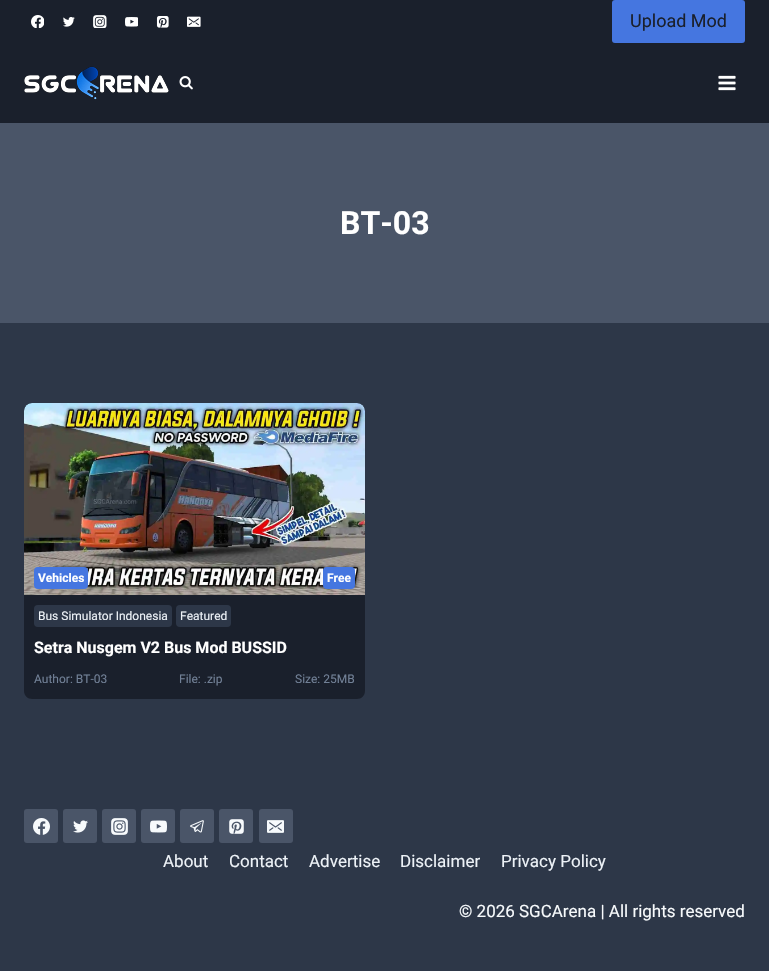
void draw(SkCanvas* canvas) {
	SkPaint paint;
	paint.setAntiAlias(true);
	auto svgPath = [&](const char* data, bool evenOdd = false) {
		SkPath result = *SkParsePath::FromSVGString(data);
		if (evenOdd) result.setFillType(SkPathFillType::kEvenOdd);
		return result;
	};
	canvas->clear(0xff2d3748);
	paint.setColor(0xff1a202c);
	canvas->drawRect(SkRect::MakeXYWH(0, 0, 769, 123), paint);
	canvas->drawImageRect(SkImages::DeferredFromEncodedData(SkData::MakeFromFileName("img1.png")), SkRect::MakeXYWH(31, 15, 13, 13), SkSamplingOptions());
	canvas->drawImageRect(SkImages::DeferredFromEncodedData(SkData::MakeFromFileName("img2.png")), SkRect::MakeXYWH(63, 17, 12, 10), SkSamplingOptions());
	canvas->drawImageRect(SkImages::DeferredFromEncodedData(SkData::MakeFromFileName("img3.png")), SkRect::MakeXYWH(93, 15, 14, 13), SkSamplingOptions());
	canvas->drawImageRect(SkImages::DeferredFromEncodedData(SkData::MakeFromFileName("img4.png")), SkRect::MakeXYWH(125, 17, 13, 10), SkSamplingOptions());
	canvas->drawImageRect(SkImages::DeferredFromEncodedData(SkData::MakeFromFileName("img5.png")), SkRect::MakeXYWH(156, 16, 13, 12), SkSamplingOptions());
	canvas->drawImageRect(SkImages::DeferredFromEncodedData(SkData::MakeFromFileName("img6.png")), SkRect::MakeXYWH(187, 16, 14, 11), SkSamplingOptions());
	paint.setColor(0xff4576e0);
	canvas->drawRoundRect(SkRect::MakeXYWH(612, 0, 133, 43), 3, 3, paint);
	SkFont f1(fontMgr->matchFamilyStyle("Roboto", SkFontStyle::Normal()), 18);
	f1.setSubpixel(true);
	paint.setColor(0xff1a202c);
	canvas->drawString("Upload Mod", 630, 27, f1, paint);
	canvas->drawImageRect(SkImages::DeferredFromEncodedData(SkData::MakeFromFileName("img7.png")), SkRect::MakeXYWH(24, 66, 145, 34), SkSamplingOptions());
	canvas->drawImageRect(SkImages::DeferredFromEncodedData(SkData::MakeFromFileName("img8.png")), SkRect::MakeXYWH(179, 76, 14, 14), SkSamplingOptions());
	canvas->drawImageRect(SkImages::DeferredFromEncodedData(SkData::MakeFromFileName("img9.png")), SkRect::MakeXYWH(718, 75, 18, 16), SkSamplingOptions());
	paint.setColor(0xff4a5568);
	canvas->drawRect(SkRect::MakeXYWH(0, 123, 769, 200), paint);
	SkFont f2(fontMgr->matchFamilyStyle("Roboto", SkFontStyle::Bold()), 32);
	f2.setSubpixel(true);
	paint.setColor(0xffffffff);
	canvas->drawString("BT-03", 340, 234, f2, paint);
	canvas->drawImageRect(SkImages::DeferredFromEncodedData(SkData::MakeFromFileName("img10.png")), SkRect::MakeXYWH(24, 403, 341, 192), SkSamplingOptions());
	paint.setColor(0xff4576e0);
	canvas->drawRoundRect(SkRect::MakeXYWH(34, 567, 54, 22), 4, 4, paint);
	SkFont f3(fontMgr->matchFamilyStyle("Roboto", SkFontStyle::Bold()), 12);
	f3.setSubpixel(true);
	paint.setColor(0xffffffff);
	canvas->drawString("Vehicles", 38, 582, f3, paint);
	paint.setColor(0xff4576e0);
	canvas->drawRoundRect(SkRect::MakeXYWH(323, 567, 32, 22), 4, 4, paint);
	paint.setColor(0xffffffff);
	canvas->drawString("Free", 327, 582, f3, paint);
	paint.setColor(0xff1a202c);
	canvas->drawPath(svgPath("M24 595H365V691C365 695.5 361.5 699 357 699H32C27.5 699 24 695.5 24 691Z"), paint);
	paint.setColor(0xff2d3748);
	canvas->drawRoundRect(SkRect::MakeXYWH(34, 605, 138, 22), 4, 4, paint);
	SkFont f4(fontMgr->matchFamilyStyle("Roboto", SkFontStyle::Normal()), 12);
	f4.setSubpixel(true);
	paint.setColor(0xffedf2f7);
	canvas->drawString("Bus Simulator Indonesia", 38, 620, f4, paint);
	paint.setColor(0xff2d3748);
	canvas->drawRoundRect(SkRect::MakeXYWH(176, 605, 55, 22), 4, 4, paint);
	paint.setColor(0xffedf2f7);
	canvas->drawString("Featured", 180, 620, f4, paint);
	SkFont f5(fontMgr->matchFamilyStyle("Roboto", SkFontStyle::Bold()), 16);
	f5.setSubpixel(true);
	paint.setColor(0xffffffff);
	canvas->drawString("Setra Nusgem V2 Bus Mod BUSSID", 34, 653, f5, paint);
	paint.setColor(0xff718096);
	canvas->drawString("Author: BT-03", 34, 683, f4, paint);
	canvas->drawString("File: .zip", 179, 683, f4, paint);
	canvas->drawString("Size: 25MB", 295, 683, f4, paint);
	paint.setColor(0xff4a5568);
	canvas->drawRoundRect(SkRect::MakeXYWH(24, 809, 34, 34), 3, 3, paint);
	canvas->drawImageRect(SkImages::DeferredFromEncodedData(SkData::MakeFromFileName("img11.png")), SkRect::MakeXYWH(33, 818, 17, 17), SkSamplingOptions());
	canvas->drawRoundRect(SkRect::MakeXYWH(63, 809, 34, 34), 3, 3, paint);
	canvas->drawImageRect(SkImages::DeferredFromEncodedData(SkData::MakeFromFileName("img12.png")), SkRect::MakeXYWH(73, 820, 15, 13), SkSamplingOptions());
	canvas->drawRoundRect(SkRect::MakeXYWH(102, 809, 34, 34), 3, 3, paint);
	canvas->drawImageRect(SkImages::DeferredFromEncodedData(SkData::MakeFromFileName("img13.png")), SkRect::MakeXYWH(111, 818, 17, 17), SkSamplingOptions());
	canvas->drawRoundRect(SkRect::MakeXYWH(141, 809, 34, 34), 3, 3, paint);
	canvas->drawImageRect(SkImages::DeferredFromEncodedData(SkData::MakeFromFileName("img14.png")), SkRect::MakeXYWH(150, 820, 17, 13), SkSamplingOptions());
	canvas->drawRoundRect(SkRect::MakeXYWH(180, 809, 34, 34), 3, 3, paint);
	canvas->drawImageRect(SkImages::DeferredFromEncodedData(SkData::MakeFromFileName("img15.png")), SkRect::MakeXYWH(190, 820, 14, 13), SkSamplingOptions());
	canvas->drawRoundRect(SkRect::MakeXYWH(219, 809, 34, 34), 3, 3, paint);
	canvas->drawImageRect(SkImages::DeferredFromEncodedData(SkData::MakeFromFileName("img16.png")), SkRect::MakeXYWH(229, 819, 15, 15), SkSamplingOptions());
	canvas->drawRoundRect(SkRect::MakeXYWH(259, 809, 34, 34), 3, 3, paint);
	canvas->drawImageRect(SkImages::DeferredFromEncodedData(SkData::MakeFromFileName("img17.png")), SkRect::MakeXYWH(267, 820, 17, 13), SkSamplingOptions());
	SkFont f6(fontMgr->matchFamilyStyle("Roboto", SkFontStyle::Normal()), 17);
	f6.setSubpixel(true);
	paint.setColor(0xffedf2f7);
	canvas->drawString("About", 163, 867, f6, paint);
	canvas->drawString("Contact", 229, 867, f6, paint);
	canvas->drawString("Advertise", 309, 867, f6, paint);
	canvas->drawString("Disclaimer", 400, 867, f6, paint);
	canvas->drawString("Privacy Policy", 501, 867, f6, paint);
	paint.setColor(0xfff7fafc);
	canvas->drawString("© 2026 SGCArena | All rights reserved", 459, 917, f6, paint);
}
